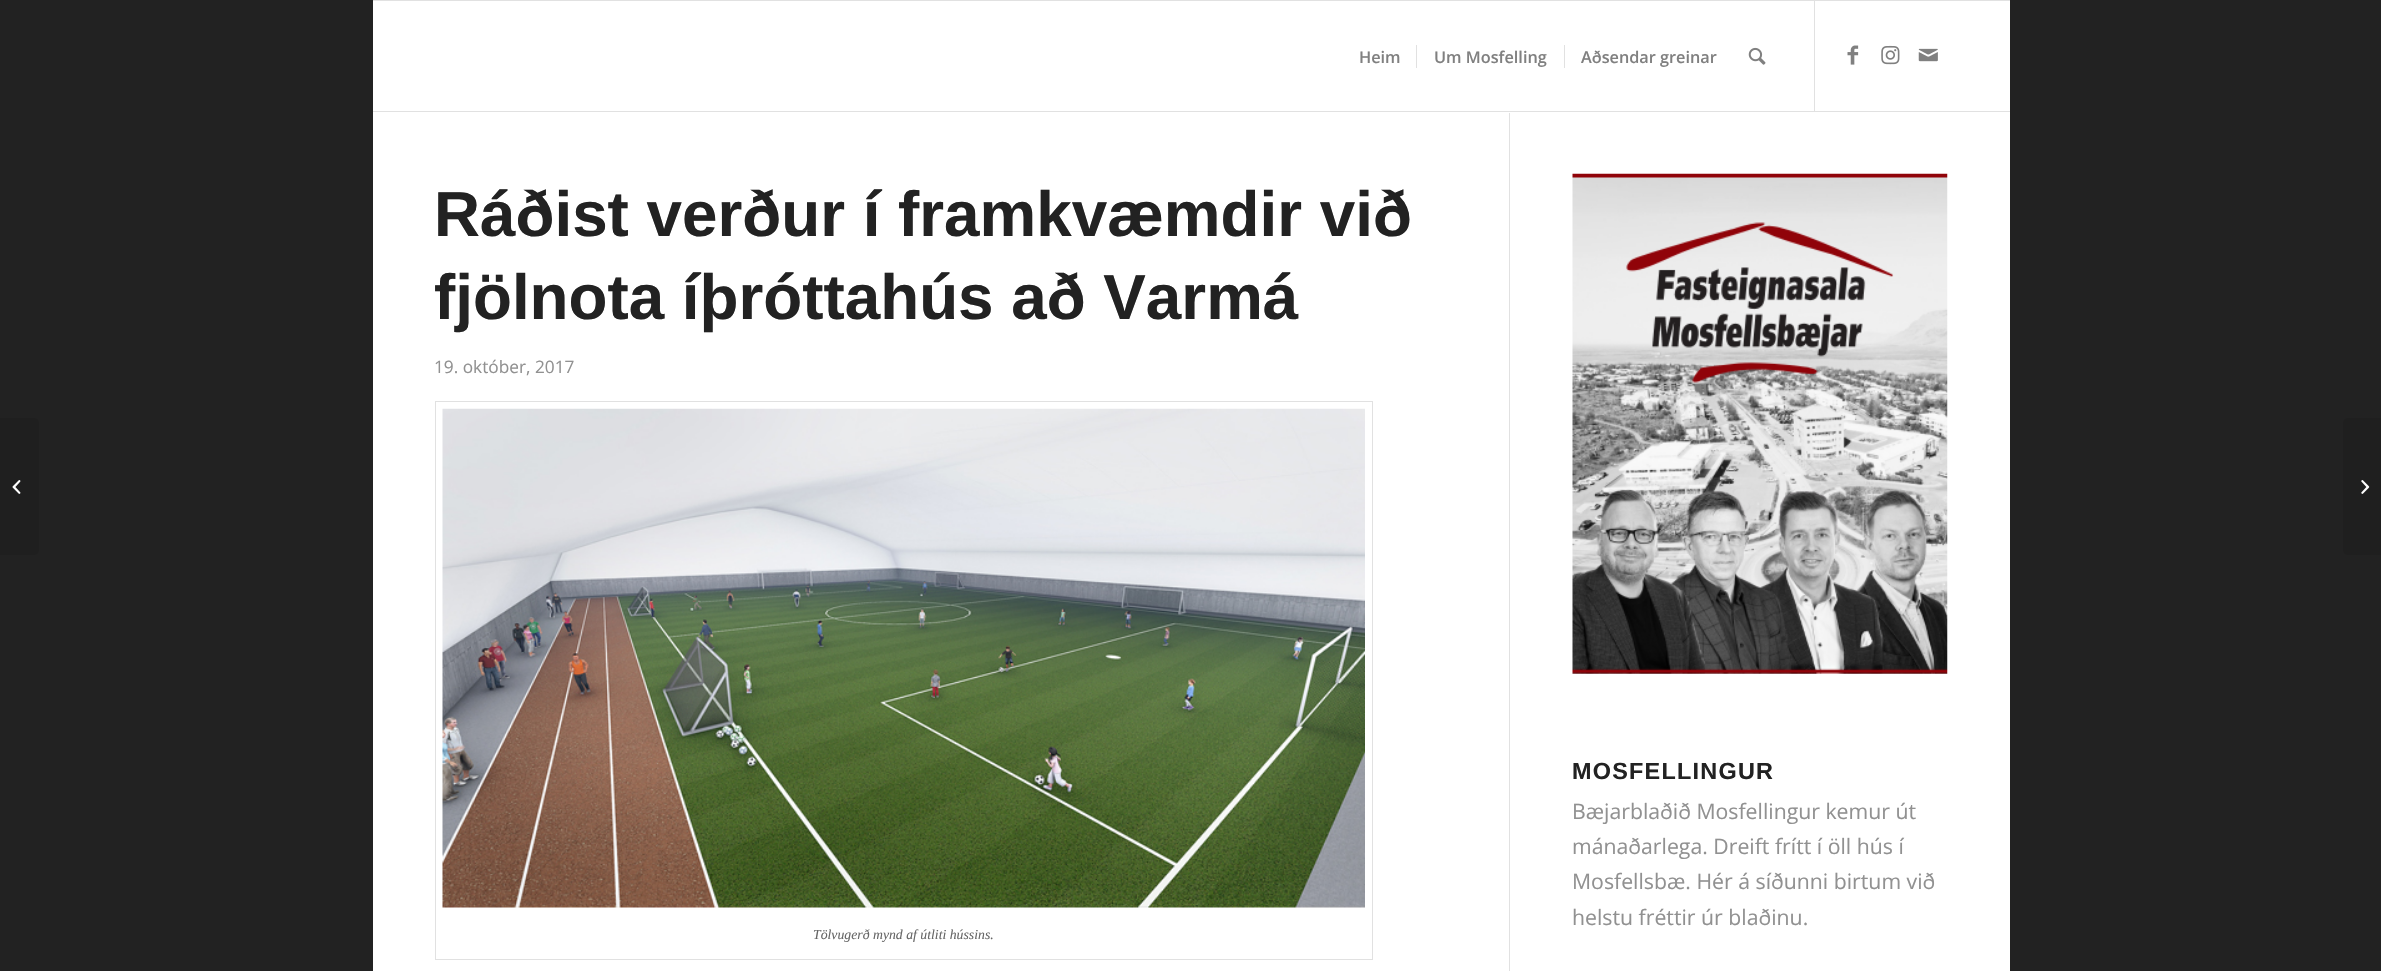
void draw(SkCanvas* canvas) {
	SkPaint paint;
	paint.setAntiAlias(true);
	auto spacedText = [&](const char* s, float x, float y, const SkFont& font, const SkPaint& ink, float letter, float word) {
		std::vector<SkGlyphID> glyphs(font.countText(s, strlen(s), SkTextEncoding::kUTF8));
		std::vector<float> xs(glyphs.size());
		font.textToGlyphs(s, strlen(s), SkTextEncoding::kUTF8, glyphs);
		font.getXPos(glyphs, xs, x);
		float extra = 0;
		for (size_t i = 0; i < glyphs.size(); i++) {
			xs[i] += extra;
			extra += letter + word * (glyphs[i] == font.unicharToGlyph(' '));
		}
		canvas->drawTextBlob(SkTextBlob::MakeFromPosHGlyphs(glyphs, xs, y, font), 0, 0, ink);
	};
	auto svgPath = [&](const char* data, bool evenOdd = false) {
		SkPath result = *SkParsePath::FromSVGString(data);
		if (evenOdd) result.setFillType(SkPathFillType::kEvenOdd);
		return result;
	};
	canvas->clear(0xff222222);
	paint.setColor(0xffe1e1e1);
	canvas->drawRect(SkRect::MakeXYWH(373, 0, 1637, 1), paint);
	paint.setColor(0xffffffff);
	canvas->drawRect(SkRect::MakeXYWH(373, 1, 1637, 970), paint);
	paint.setColor(0xffe1e1e1);
	canvas->drawRect(SkRect::MakeXYWH(1509, 111, 1, 860), paint);
	paint.setColor(0xfffefefe);
	canvas->drawRect(SkRect::MakeXYWH(1509, 111, 1, 2), paint);
	paint.setColor(0xffe1e1e1);
	canvas->drawRect(SkRect::MakeXYWH(373, 111, 1637, 1), paint);
	canvas->drawRect(SkRect::MakeXYWH(1814, 1, 1, 110), paint);
	SkFont f1(fontMgr->matchFamilyStyle("Open Sans", SkFontStyle(600, SkFontStyle::kNormal_Width, SkFontStyle::kUpright_Slant)), 16.25);
	f1.setSubpixel(true);
	paint.setColor(0xff808080);
	canvas->drawString("Heim", 1359, 63, f1, paint);
	canvas->drawString("Um Mosfelling", 1434, 63, f1, paint);
	paint.setColor(0xffe1e1e1);
	canvas->drawRect(SkRect::MakeXYWH(1416, 45, 1, 23), paint);
	paint.setColor(0xff808080);
	canvas->drawString("Aðsendar greinar", 1581, 63, f1, paint);
	paint.setColor(0xffe1e1e1);
	canvas->drawRect(SkRect::MakeXYWH(1564, 45, 1, 23), paint);
	canvas->drawImageRect(SkImages::DeferredFromEncodedData(SkData::MakeFromFileName("img1.png")), SkRect::MakeXYWH(1748, 47, 18, 18), SkSamplingOptions());
	canvas->drawImageRect(SkImages::DeferredFromEncodedData(SkData::MakeFromFileName("img2.png")), SkRect::MakeXYWH(1847, 45, 12, 20), SkSamplingOptions());
	canvas->drawImageRect(SkImages::DeferredFromEncodedData(SkData::MakeFromFileName("img3.png")), SkRect::MakeXYWH(1881, 45, 19, 20), SkSamplingOptions());
	canvas->drawImageRect(SkImages::DeferredFromEncodedData(SkData::MakeFromFileName("img4.png")), SkRect::MakeXYWH(1918, 48, 20, 14), SkSamplingOptions());
	paint.setColor(0xff1f1f1f);
	canvas->drawPath(svgPath("M0 418H34C37 418 39 420 39 423V550C39 553 37 555 34 555H0Z"), paint);
	canvas->drawImageRect(SkImages::DeferredFromEncodedData(SkData::MakeFromFileName("img5.png")), SkRect::MakeXYWH(12, 480, 9, 14), SkSamplingOptions());
	SkFont f2(fontMgr->matchFamilyStyle("Arimo", SkFontStyle::Bold()), 63.75);
	f2.setSubpixel(true);
	paint.setColor(0xff222222);
	canvas->drawString("Ráðist verður í framkvæmdir við", 434, 236, f2, paint);
	canvas->drawString("fjölnota íþróttahús að Varmá", 434, 319, f2, paint);
	SkFont f3(fontMgr->matchFamilyStyle("Open Sans", SkFontStyle::Normal()), 17.25);
	f3.setSubpixel(true);
	paint.setColor(0xff919191);
	canvas->drawString("19. október, 2017", 434, 373, f3, paint);
	paint.setStroke(true);
	paint.setStrokeWidth(1);
	paint.setColor(0xffe1e1e1);
	canvas->drawRect(SkRect::MakeXYWH(435.5, 401.5, 937, 558), paint);
	canvas->drawImageRect(SkImages::DeferredFromEncodedData(SkData::MakeFromFileName("img6.png")), SkRect::MakeXYWH(442, 408, 923, 500), SkSamplingOptions());
	SkFont f4(fontMgr->matchFamilyStyle("Liberation Serif", SkFontStyle::Italic()), 13.75);
	f4.setSubpixel(true);
	paint.setStroke(false);
	paint.setColor(0xff666666);
	canvas->drawString("Tölvugerð mynd af útliti hússins.", 813, 939, f4, paint);
	canvas->drawImageRect(SkImages::DeferredFromEncodedData(SkData::MakeFromFileName("img7.png")), SkRect::MakeXYWH(1572, 173, 376, 501), SkSamplingOptions());
	SkFont f5(fontMgr->matchFamilyStyle("Arimo", SkFontStyle::Bold()), 23.4);
	f5.setSubpixel(true);
	paint.setColor(0xff222222);
	spacedText("MOSFELLINGUR", 1572, 779, f5, paint, 1.25, 0);
	SkFont f6(fontMgr->matchFamilyStyle("Open Sans", SkFontStyle::Normal()), 21.25);
	f6.setSubpixel(true);
	paint.setColor(0xff919191);
	canvas->drawString("Bæjarblaðið Mosfellingur kemur út", 1572, 819, f6, paint);
	canvas->drawString("mánaðarlega. Dreift frítt í öll hús í", 1572, 854, f6, paint);
	canvas->drawString("Mosfellsbæ. Hér á síðunni birtum við", 1572, 889, f6, paint);
	canvas->drawString("helstu fréttir úr blaðinu.", 1572, 925, f6, paint);
	paint.setColor(0xff1f1f1f);
	canvas->drawPath(svgPath("M2348 418H2381V555H2348C2345 555 2343 553 2343 550V423C2343 420 2345 418 2348 418Z"), paint);
	canvas->drawImageRect(SkImages::DeferredFromEncodedData(SkData::MakeFromFileName("img8.png")), SkRect::MakeXYWH(2361, 480, 9, 14), SkSamplingOptions());
}
